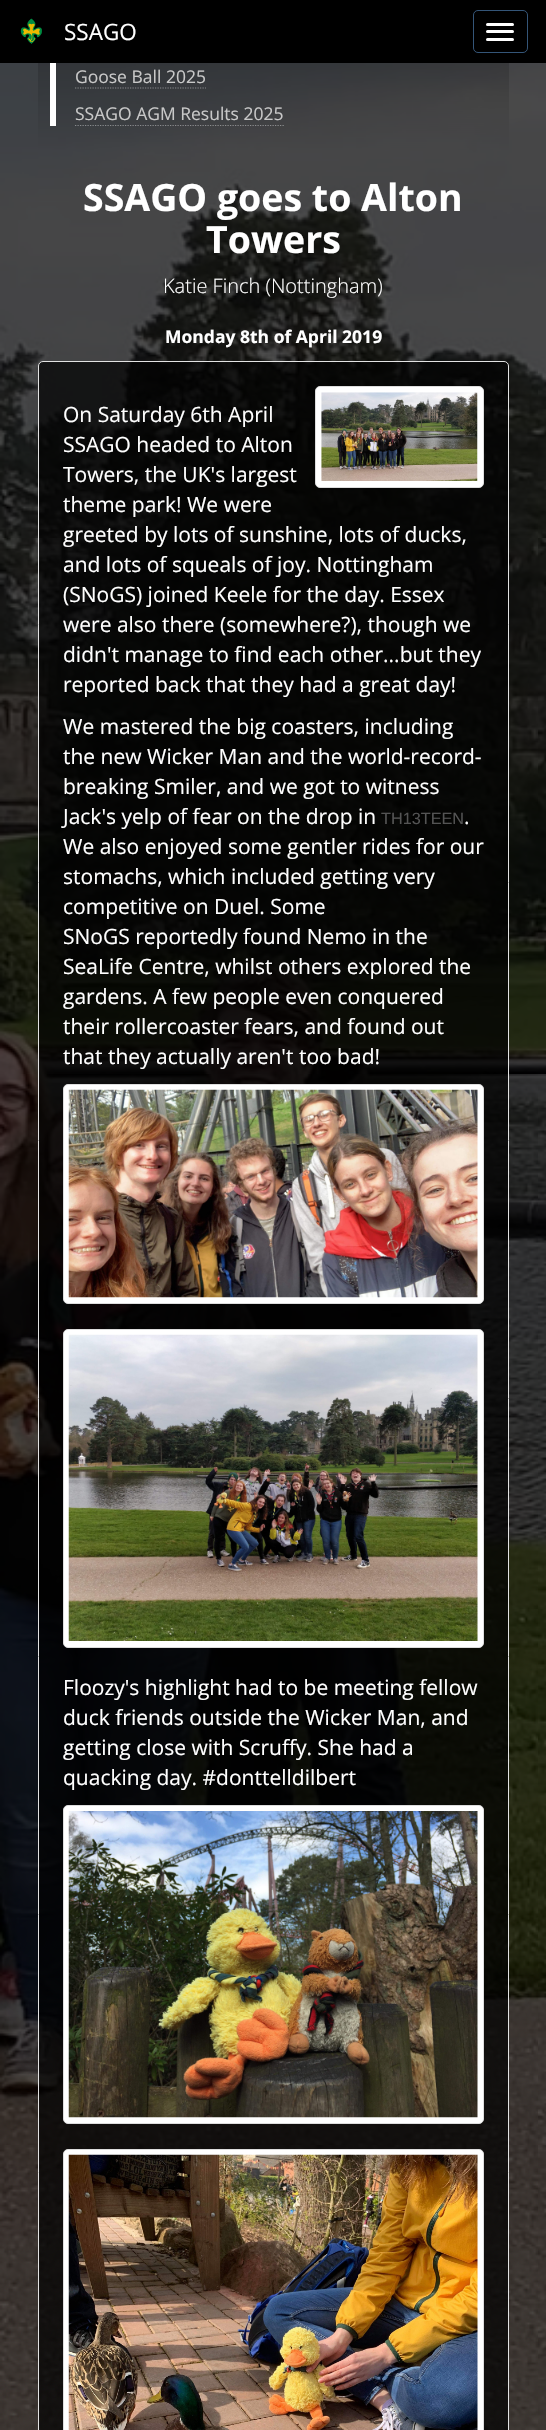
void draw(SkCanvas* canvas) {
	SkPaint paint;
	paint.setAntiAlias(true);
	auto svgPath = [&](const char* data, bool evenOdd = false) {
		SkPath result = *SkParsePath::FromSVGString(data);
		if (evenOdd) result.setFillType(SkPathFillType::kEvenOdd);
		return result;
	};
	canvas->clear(0xffffffff);
	paint.setColor(0xff000000);
	canvas->drawRect(SkRect::MakeXYWH(0, 0, 546, 63), paint);
	canvas->drawImageRect(SkImages::DeferredFromEncodedData(SkData::MakeFromFileName("img1.png")), SkRect::MakeXYWH(20, 18, 22, 26), SkSamplingOptions());
	SkFont f1(fontMgr->matchFamilyStyle("Open Sans", SkFontStyle::Normal()), 22.5);
	f1.setSubpixel(true);
	paint.setColor(0xffffffff);
	canvas->drawString("SSAGO", 64, 40, f1, paint);
	paint.setStroke(true);
	paint.setStrokeWidth(1);
	paint.setColor(0xff345578);
	canvas->drawRoundRect(SkRect::MakeXYWH(473.5, 10.5, 54, 42), 4.5, 4.5, paint);
	paint.setStroke(false);
	paint.setColor(0xffffffff);
	canvas->drawRoundRect(SkRect::MakeXYWH(486, 23, 28, 3), 1.5, 1.5, paint);
	canvas->drawRoundRect(SkRect::MakeXYWH(486, 30, 28, 3), 1.5, 1.5, paint);
	canvas->drawRoundRect(SkRect::MakeXYWH(486, 38, 28, 3), 1.5, 1.5, paint);
	canvas->drawImageRect(SkImages::DeferredFromEncodedData(SkData::MakeFromFileName("img2.png")), SkRect::MakeXYWH(0, 63, 546, 2367), SkSamplingOptions());
	canvas->drawRect(SkRect::MakeXYWH(50, 63, 6, 63), paint);
	SkFont f2(fontMgr->matchFamilyStyle("Open Sans", SkFontStyle::Normal()), 17.5);
	f2.setSubpixel(true);
	paint.setColor(0xffc8c8c8);
	canvas->drawString("Goose Ball 2025", 75, 83, f2, paint);
	paint.setStroke(true);
	paint.setStrokeWidth(1.2);
	paint.setColor(0xff87888b);
	paint.setPathEffect(SkDashPathEffect::Make({{1.25f, 1.25f}}, 0));
	canvas->drawPath(svgPath("M75 88H206"), paint);
	paint.setPathEffect(nullptr);
	paint.setStroke(false);
	paint.setColor(0xffc8c8c8);
	canvas->drawString("SSAGO AGM Results 2025", 75, 120, f2, paint);
	paint.setStroke(true);
	paint.setColor(0x66ffffff);
	paint.setPathEffect(SkDashPathEffect::Make({{1.25f, 1.25f}}, 0));
	canvas->drawPath(svgPath("M75 125.5H284"), paint);
	paint.setPathEffect(nullptr);
	SkFont f3(fontMgr->matchFamilyStyle("Open Sans", SkFontStyle::Bold()), 37.5);
	f3.setSubpixel(true);
	paint.setStroke(false);
	paint.setColor(0xffffffff);
	canvas->drawString("SSAGO goes to Alton", 83, 211, f3, paint);
	canvas->drawString("Towers", 206, 253, f3, paint);
	SkFont f4(fontMgr->matchFamilyStyle("Open Sans", SkFontStyle(300, SkFontStyle::kNormal_Width, SkFontStyle::kUpright_Slant)), 20);
	f4.setSubpixel(true);
	canvas->drawString("Katie Finch (Nottingham)", 163, 293, f4, paint);
	SkFont f5(fontMgr->matchFamilyStyle("Open Sans", SkFontStyle::Bold()), 17.5);
	f5.setSubpixel(true);
	canvas->drawString("Monday 8th of April 2019", 165, 343, f5, paint);
	paint.setColor(0xb3000000);
	canvas->drawRoundRect(SkRect::MakeXYWH(38.5, 361.5, 470, 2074), 4.5, 4.5, paint);
	paint.setStroke(true);
	paint.setStrokeWidth(1);
	paint.setColor(0xffe3e3e3);
	canvas->drawRoundRect(SkRect::MakeXYWH(38.5, 361.5, 470, 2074), 4.5, 4.5, paint);
	paint.setStroke(false);
	paint.setColor(0xffffffff);
	canvas->drawRoundRect(SkRect::MakeXYWH(315.5, 386.5, 168, 101), 4.5, 4.5, paint);
	paint.setStroke(true);
	paint.setColor(0xffdddddd);
	canvas->drawRoundRect(SkRect::MakeXYWH(315.5, 386.5, 168, 101), 4.5, 4.5, paint);
	canvas->drawImageRect(SkImages::DeferredFromEncodedData(SkData::MakeFromFileName("img3.png")), SkRect::MakeXYWH(321, 392, 157, 89), SkSamplingOptions());
	SkFont f6(fontMgr->matchFamilyStyle("Open Sans", SkFontStyle::Normal()), 21);
	f6.setSubpixel(true);
	paint.setStroke(false);
	paint.setColor(0xffffffff);
	canvas->drawString("On Saturday 6th April", 63, 422, f6, paint);
	canvas->drawString("SSAGO headed to Alton", 63, 452, f6, paint);
	canvas->drawString("Towers, the UK's largest", 63, 482, f6, paint);
	canvas->drawString("theme park! We were", 63, 512, f6, paint);
	canvas->drawString("greeted by lots of sunshine, lots of ducks,", 63, 542, f6, paint);
	canvas->drawString("and lots of squeals of joy. Nottingham", 63, 572, f6, paint);
	canvas->drawString("(SNoGS) joined Keele for the day. Essex", 63, 602, f6, paint);
	canvas->drawString("were also there (somewhere?), though we", 63, 632, f6, paint);
	canvas->drawString("didn't manage to find each other...but they", 63, 662, f6, paint);
	canvas->drawString("reported back that they had a great day!", 63, 692, f6, paint);
	canvas->drawString("We mastered the big coasters, including", 63, 734, f6, paint);
	canvas->drawString("the new Wicker Man and the world-record-", 63, 764, f6, paint);
	canvas->drawString("breaking Smiler, and we got to witness", 63, 794, f6, paint);
	canvas->drawString("Jack's yelp of fear on the drop in", 63, 824, f6, paint);
	SkFont f7(fontMgr->matchFamilyStyle("Liberation Sans", SkFontStyle::Normal()), 16.25);
	f7.setSubpixel(true);
	paint.setColor(0xff545454);
	canvas->drawString("TH13TEEN", 381, 824, f7, paint);
	paint.setColor(0xffffffff);
	canvas->drawString(".", 464, 824, f6, paint);
	canvas->drawString("We also enjoyed some gentler rides for our", 63, 854, f6, paint);
	canvas->drawString("stomachs, which included getting very", 63, 884, f6, paint);
	canvas->drawString("competitive on Duel. Some", 63, 914, f6, paint);
	canvas->drawString("SNoGS reportedly found Nemo in the", 63, 944, f6, paint);
	canvas->drawString("SeaLife Centre, whilst others explored the", 63, 974, f6, paint);
	canvas->drawString("gardens. A few people even conquered", 63, 1004, f6, paint);
	canvas->drawString("their rollercoaster fears, and found out", 63, 1034, f6, paint);
	canvas->drawString("that they actually aren't too bad!", 63, 1064, f6, paint);
	canvas->drawRoundRect(SkRect::MakeXYWH(63.5, 1084.5, 420, 219), 4.5, 4.5, paint);
	paint.setStroke(true);
	paint.setColor(0xffdddddd);
	canvas->drawRoundRect(SkRect::MakeXYWH(63.5, 1084.5, 420, 219), 4.5, 4.5, paint);
	canvas->drawImageRect(SkImages::DeferredFromEncodedData(SkData::MakeFromFileName("img4.png")), SkRect::MakeXYWH(68, 1089, 410, 209), SkSamplingOptions());
	paint.setStroke(false);
	paint.setColor(0xffffffff);
	canvas->drawRoundRect(SkRect::MakeXYWH(63.5, 1329.5, 420, 318), 4.5, 4.5, paint);
	paint.setStroke(true);
	paint.setColor(0xffdddddd);
	canvas->drawRoundRect(SkRect::MakeXYWH(63.5, 1329.5, 420, 318), 4.5, 4.5, paint);
	canvas->drawImageRect(SkImages::DeferredFromEncodedData(SkData::MakeFromFileName("img5.png")), SkRect::MakeXYWH(68, 1334, 410, 307), SkSamplingOptions());
	paint.setStroke(false);
	paint.setColor(0xffffffff);
	canvas->drawString("Floozy's highlight had to be meeting fellow", 63, 1695, f6, paint);
	canvas->drawString("duck friends outside the Wicker Man, and", 63, 1725, f6, paint);
	canvas->drawString("getting close with Scruffy. She had a", 63, 1755, f6, paint);
	canvas->drawString("quacking day. #donttelldilbert", 63, 1785, f6, paint);
	canvas->drawRoundRect(SkRect::MakeXYWH(63.5, 1805.5, 420, 318), 4.5, 4.5, paint);
	paint.setStroke(true);
	paint.setColor(0xffdddddd);
	canvas->drawRoundRect(SkRect::MakeXYWH(63.5, 1805.5, 420, 318), 4.5, 4.5, paint);
	canvas->drawImageRect(SkImages::DeferredFromEncodedData(SkData::MakeFromFileName("img6.png")), SkRect::MakeXYWH(68, 1811, 410, 307), SkSamplingOptions());
	paint.setStroke(false);
	paint.setColor(0xffffffff);
	canvas->drawRoundRect(SkRect::MakeXYWH(63.5, 2149.5, 420, 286), 4.5, 4.5, paint);
	paint.setStroke(true);
	paint.setColor(0xffdddddd);
	canvas->drawRoundRect(SkRect::MakeXYWH(63.5, 2149.5, 420, 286), 4.5, 4.5, paint);
	canvas->drawImageRect(SkImages::DeferredFromEncodedData(SkData::MakeFromFileName("img7.png")), SkRect::MakeXYWH(68, 2154, 410, 276), SkSamplingOptions());
}
